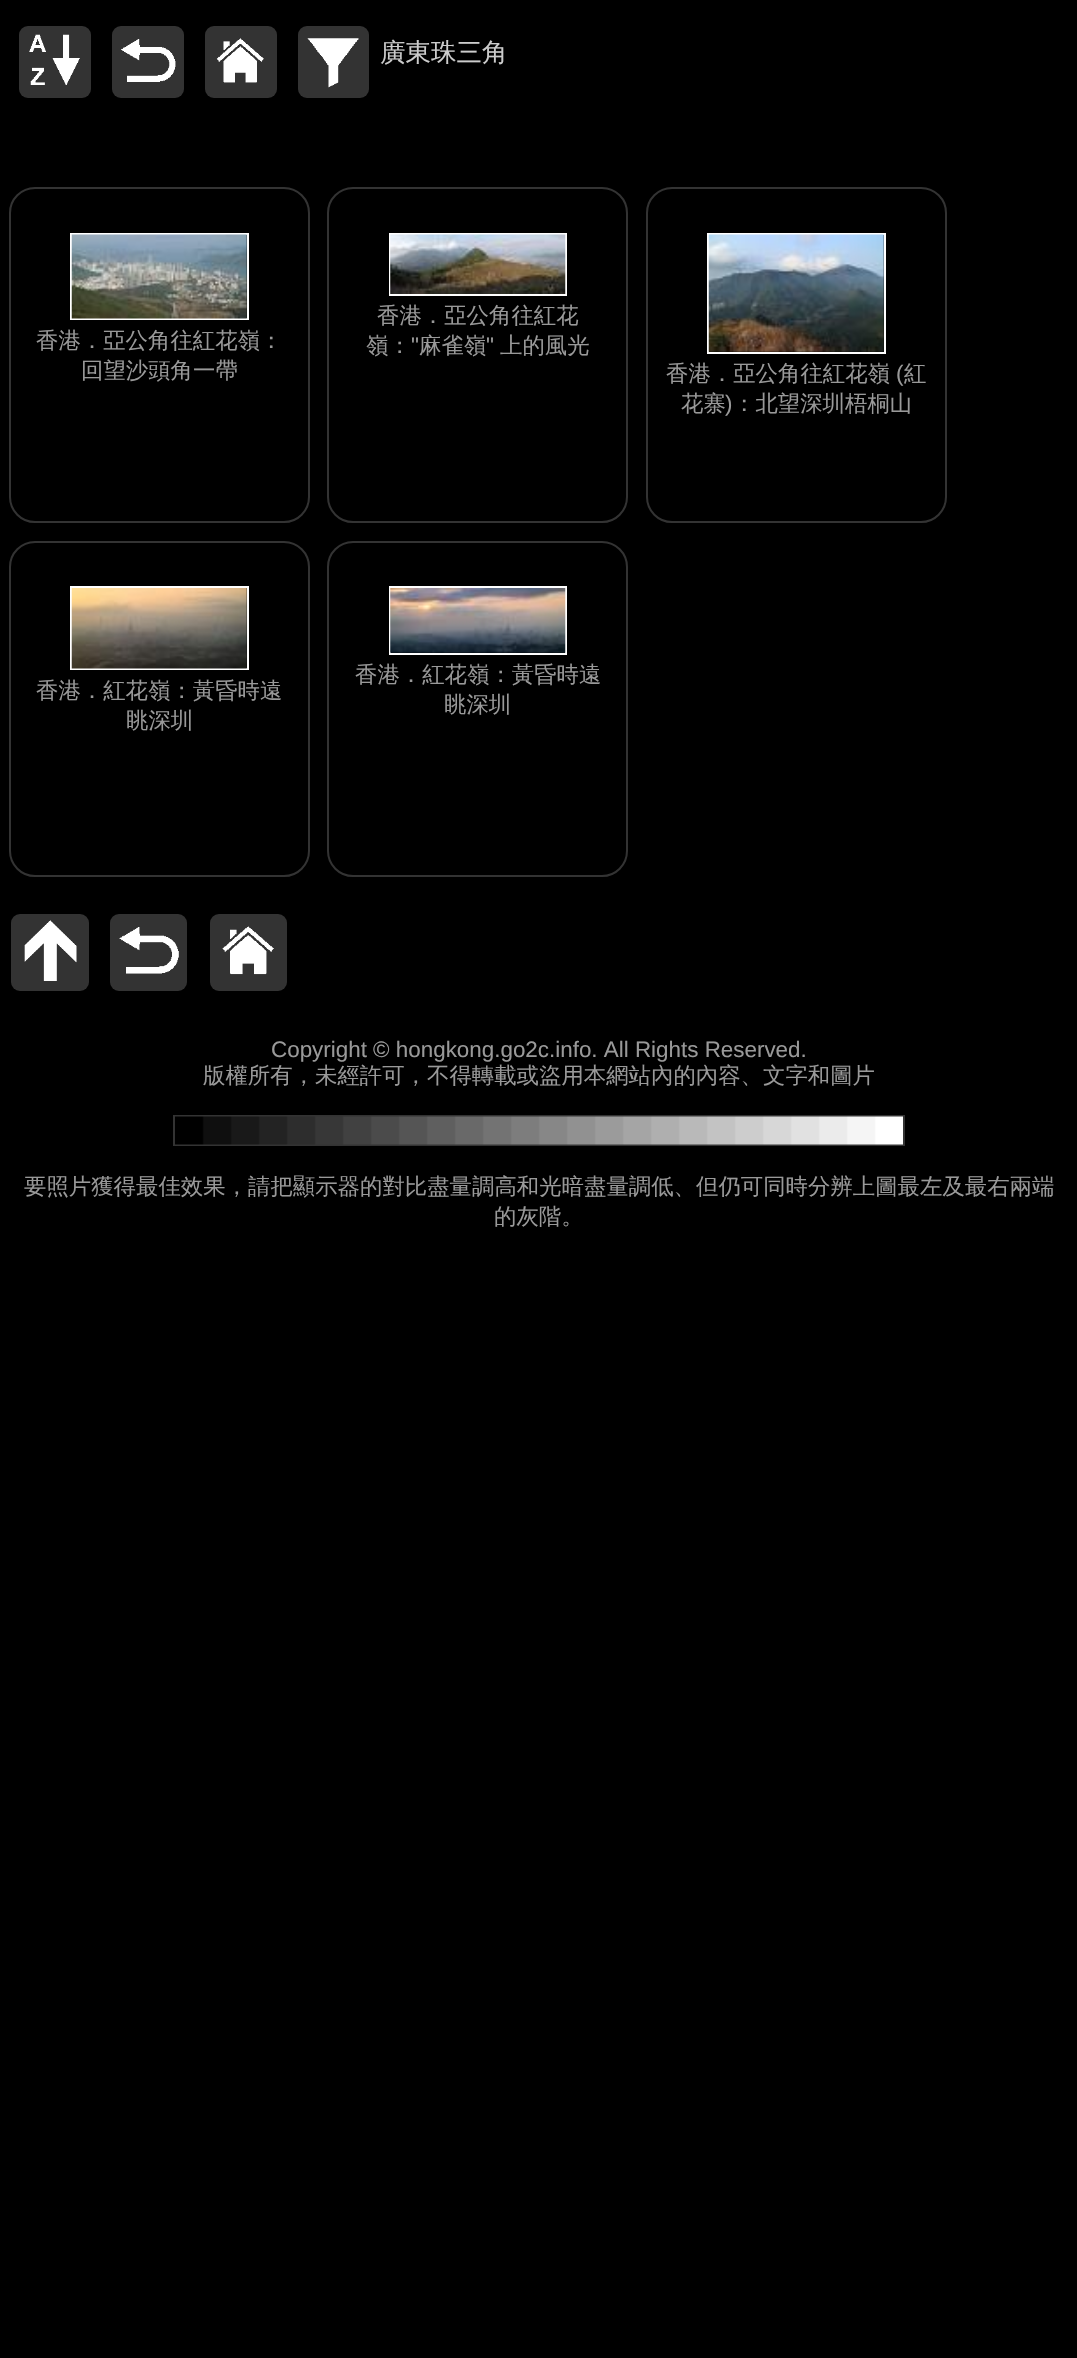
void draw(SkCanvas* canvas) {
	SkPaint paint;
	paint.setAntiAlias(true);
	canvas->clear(0xff000000);
	paint.setColor(0xff333333);
	canvas->drawRoundRect(SkRect::MakeXYWH(19, 26, 72, 72), 9, 9, paint);
	canvas->drawImageRect(SkImages::DeferredFromEncodedData(SkData::MakeFromFileName("img1.png")), SkRect::MakeXYWH(29, 34, 51, 51), SkSamplingOptions());
	canvas->drawRoundRect(SkRect::MakeXYWH(112, 26, 72, 72), 9, 9, paint);
	canvas->drawImageRect(SkImages::DeferredFromEncodedData(SkData::MakeFromFileName("img2.png")), SkRect::MakeXYWH(121, 39, 55, 43), SkSamplingOptions());
	canvas->drawRoundRect(SkRect::MakeXYWH(205, 26, 72, 72), 9, 9, paint);
	canvas->drawImageRect(SkImages::DeferredFromEncodedData(SkData::MakeFromFileName("img3.png")), SkRect::MakeXYWH(216, 38, 48, 45), SkSamplingOptions());
	canvas->drawRoundRect(SkRect::MakeXYWH(298, 26, 71, 72), 9, 9, paint);
	canvas->drawImageRect(SkImages::DeferredFromEncodedData(SkData::MakeFromFileName("img4.png")), SkRect::MakeXYWH(307, 38, 52, 50), SkSamplingOptions());
	SkFont f1(fontMgr->matchFamilyStyle("WenQuanYi Zen Hei", SkFontStyle(500, SkFontStyle::kNormal_Width, SkFontStyle::kUpright_Slant)), 25.5);
	f1.setSubpixel(true);
	paint.setColor(0xffcccccc);
	canvas->drawString("廣東珠三角", 380, 61, f1, paint);
	paint.setStroke(true);
	paint.setStrokeWidth(2);
	paint.setColor(0xff333333);
	canvas->drawRoundRect(SkRect::MakeXYWH(10, 188, 299, 334), 25, 25, paint);
	paint.setColor(0xffffffff);
	canvas->drawRect(SkRect::MakeXYWH(71, 234, 177, 85), paint);
	canvas->drawImageRect(SkImages::DeferredFromEncodedData(SkData::MakeFromFileName("img5.png")), SkRect::MakeXYWH(71, 234, 176, 85), SkSamplingOptions());
	SkFont f2(fontMgr->matchFamilyStyle("WenQuanYi Zen Hei", SkFontStyle(500, SkFontStyle::kNormal_Width, SkFontStyle::kUpright_Slant)), 22.4);
	f2.setSubpixel(true);
	paint.setStroke(false);
	paint.setColor(0xff999999);
	canvas->drawString("香港．亞公角往紅花嶺：", 36, 348, f2, paint);
	canvas->drawString("回望沙頭角一帶", 81, 378, f2, paint);
	paint.setStroke(true);
	paint.setColor(0xff333333);
	canvas->drawRoundRect(SkRect::MakeXYWH(328, 188, 299, 334), 25, 25, paint);
	paint.setColor(0xffffffff);
	canvas->drawRect(SkRect::MakeXYWH(390, 234, 176, 61), paint);
	canvas->drawImageRect(SkImages::DeferredFromEncodedData(SkData::MakeFromFileName("img6.png")), SkRect::MakeXYWH(390, 234, 176, 60), SkSamplingOptions());
	paint.setStroke(false);
	paint.setColor(0xff999999);
	canvas->drawString("香港．亞公角往紅花", 377, 323, f2, paint);
	canvas->drawString("嶺：", 366, 353, f2, paint);
	SkFont f3(fontMgr->matchFamilyStyle("Liberation Sans", SkFontStyle::Normal()), 22.4);
	f3.setSubpixel(true);
	canvas->drawString("\"", 411, 353, f3, paint);
	canvas->drawString("麻雀嶺", 419, 353, f2, paint);
	canvas->drawString("\"", 486, 353, f3, paint);
	canvas->drawString("上的風光", 500, 353, f2, paint);
	paint.setStroke(true);
	paint.setColor(0xff333333);
	canvas->drawRoundRect(SkRect::MakeXYWH(647, 188, 299, 334), 25, 25, paint);
	paint.setColor(0xffffffff);
	canvas->drawRect(SkRect::MakeXYWH(708, 234, 177, 119), paint);
	canvas->drawImageRect(SkImages::DeferredFromEncodedData(SkData::MakeFromFileName("img7.png")), SkRect::MakeXYWH(708, 234, 176, 118), SkSamplingOptions());
	paint.setStroke(false);
	paint.setColor(0xff999999);
	canvas->drawString("香港．亞公角往紅花嶺", 666, 381, f2, paint);
	canvas->drawString("(", 896, 381, f3, paint);
	canvas->drawString("紅", 904, 381, f2, paint);
	canvas->drawString("花寨", 681, 411, f2, paint);
	canvas->drawString(")", 725, 411, f3, paint);
	canvas->drawString("：北望深圳梧桐山", 733, 411, f2, paint);
	paint.setStroke(true);
	paint.setColor(0xff333333);
	canvas->drawRoundRect(SkRect::MakeXYWH(10, 542, 299, 334), 25, 25, paint);
	paint.setColor(0xffffffff);
	canvas->drawRect(SkRect::MakeXYWH(71, 587, 177, 82), paint);
	canvas->drawImageRect(SkImages::DeferredFromEncodedData(SkData::MakeFromFileName("img8.png")), SkRect::MakeXYWH(71, 588, 176, 81), SkSamplingOptions());
	paint.setStroke(false);
	paint.setColor(0xff999999);
	canvas->drawString("香港．紅花嶺：黃昏時遠", 36, 698, f2, paint);
	canvas->drawString("眺深圳", 126, 728, f2, paint);
	paint.setStroke(true);
	paint.setColor(0xff333333);
	canvas->drawRoundRect(SkRect::MakeXYWH(328, 542, 299, 334), 25, 25, paint);
	paint.setColor(0xffffffff);
	canvas->drawRect(SkRect::MakeXYWH(390, 587, 176, 67), paint);
	canvas->drawImageRect(SkImages::DeferredFromEncodedData(SkData::MakeFromFileName("img9.png")), SkRect::MakeXYWH(390, 588, 176, 65), SkSamplingOptions());
	paint.setStroke(false);
	paint.setColor(0xff999999);
	canvas->drawString("香港．紅花嶺：黃昏時遠", 355, 682, f2, paint);
	canvas->drawString("眺深圳", 444, 712, f2, paint);
	paint.setColor(0xff333333);
	canvas->drawRoundRect(SkRect::MakeXYWH(11, 914, 78, 77), 9, 9, paint);
	canvas->drawImageRect(SkImages::DeferredFromEncodedData(SkData::MakeFromFileName("img10.png")), SkRect::MakeXYWH(24, 920, 53, 61), SkSamplingOptions());
	canvas->drawRoundRect(SkRect::MakeXYWH(110, 914, 77, 77), 9, 9, paint);
	canvas->drawImageRect(SkImages::DeferredFromEncodedData(SkData::MakeFromFileName("img11.png")), SkRect::MakeXYWH(119, 927, 60, 47), SkSamplingOptions());
	canvas->drawRoundRect(SkRect::MakeXYWH(210, 914, 77, 77), 9, 9, paint);
	canvas->drawImageRect(SkImages::DeferredFromEncodedData(SkData::MakeFromFileName("img12.png")), SkRect::MakeXYWH(222, 926, 52, 49), SkSamplingOptions());
	paint.setColor(0xff999999);
	canvas->drawString("Copyright © hongkong.go2c.info. All Rights Reserved.", 271, 1057, f3, paint);
	canvas->drawString("版權所有，未經許可，不得轉載或盜用本網站內的內容、文字和圖片", 203, 1083, f2, paint);
	paint.setStroke(true);
	paint.setColor(0xff333333);
	canvas->drawRect(SkRect::MakeXYWH(174, 1116, 730, 29), paint);
	canvas->drawImageRect(SkImages::DeferredFromEncodedData(SkData::MakeFromFileName("img13.png")), SkRect::MakeXYWH(175, 1116, 728, 29), SkSamplingOptions());
	paint.setStroke(false);
	paint.setColor(0xff999999);
	canvas->drawString("要照片獲得最佳效果，請把顯示器的對比盡量調高和光暗盡量調低、但仍可同時分辨上圖最左及最右兩端", 24, 1194, f2, paint);
	canvas->drawString("的灰階。", 494, 1224, f2, paint);
}
